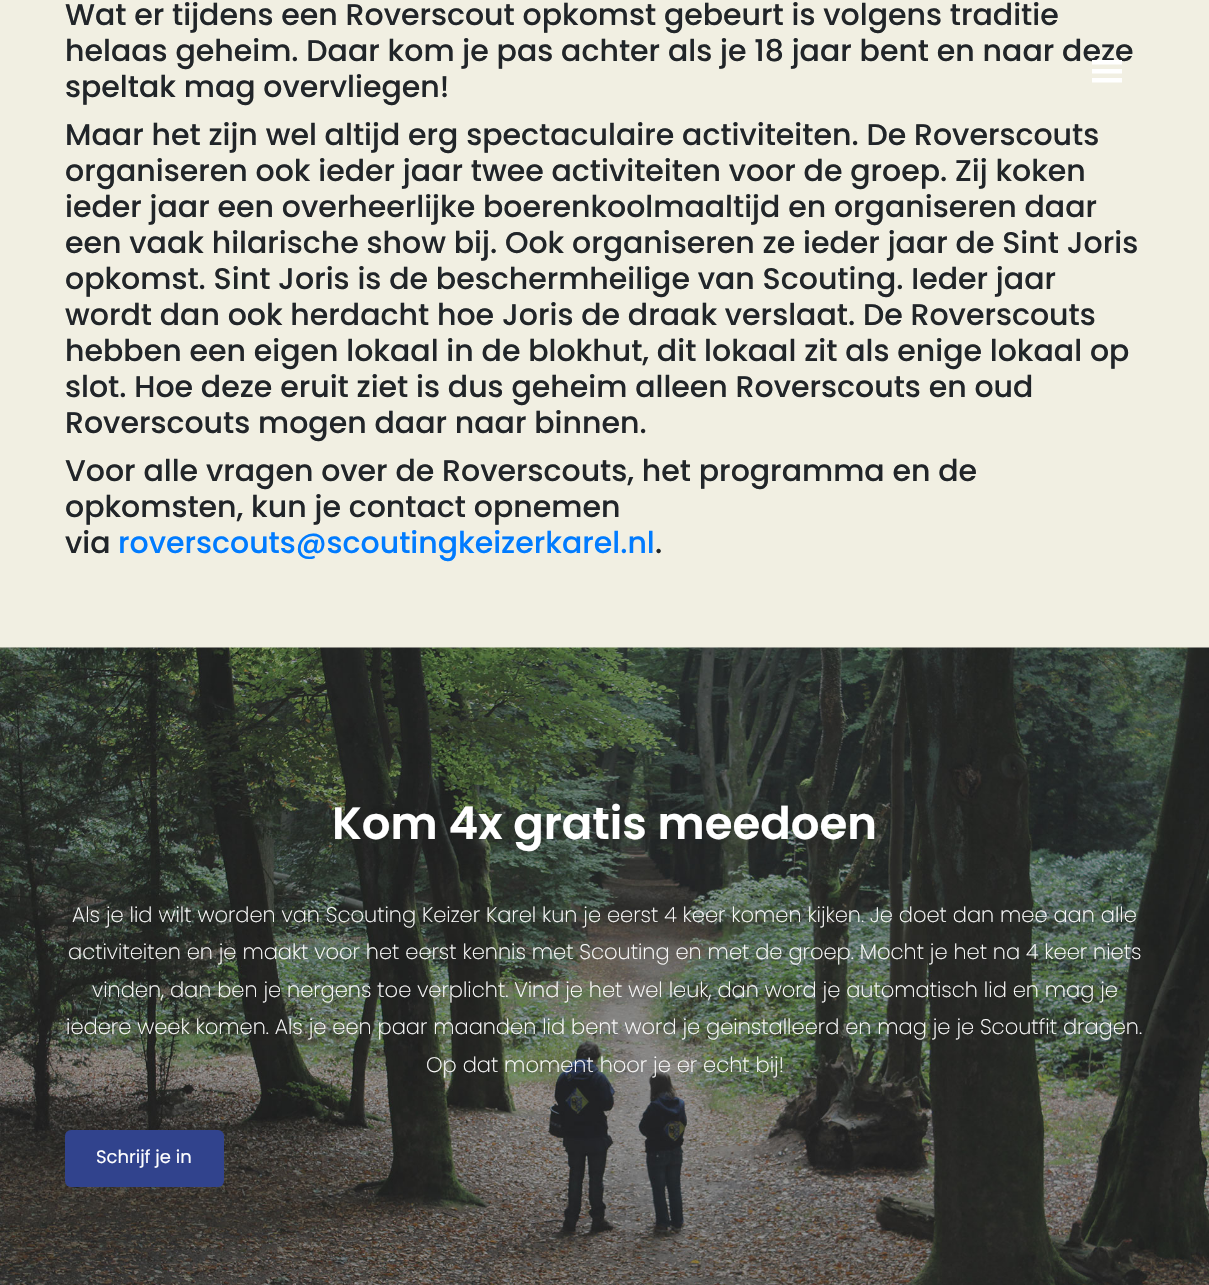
void draw(SkCanvas* canvas) {
	SkPaint paint;
	paint.setAntiAlias(true);
	canvas->clear(0xfff1efe2);
	SkFont f1(fontMgr->matchFamilyStyle("Poppins", SkFontStyle(500, SkFontStyle::kNormal_Width, SkFontStyle::kUpright_Slant)), 30);
	f1.setSubpixel(true);
	paint.setColor(0xff212529);
	canvas->drawString("Wat er tijdens een Roverscout opkomst gebeurt is volgens traditie", 65, 25, f1, paint);
	canvas->drawString("helaas geheim. Daar kom je pas achter als je 18 jaar bent en naar deze", 65, 61, f1, paint);
	canvas->drawString("speltak mag overvliegen!", 65, 97, f1, paint);
	canvas->drawString("Maar het zijn wel altijd erg spectaculaire activiteiten. De Roverscouts", 65, 145, f1, paint);
	canvas->drawString("organiseren ook ieder jaar twee activiteiten voor de groep. Zij koken", 65, 181, f1, paint);
	canvas->drawString("ieder jaar een overheerlijke boerenkoolmaaltijd en organiseren daar", 65, 217, f1, paint);
	canvas->drawString("een vaak hilarische show bij. Ook organiseren ze ieder jaar de Sint Joris", 65, 253, f1, paint);
	canvas->drawString("opkomst. Sint Joris is de beschermheilige van Scouting. Ieder jaar", 65, 289, f1, paint);
	canvas->drawString("wordt dan ook herdacht hoe Joris de draak verslaat. De Roverscouts", 65, 325, f1, paint);
	canvas->drawString("hebben een eigen lokaal in de blokhut, dit lokaal zit als enige lokaal op", 65, 361, f1, paint);
	canvas->drawString("slot. Hoe deze eruit ziet is dus geheim alleen Roverscouts en oud", 65, 397, f1, paint);
	canvas->drawString("Roverscouts mogen daar naar binnen.", 65, 433, f1, paint);
	canvas->drawString("Voor alle vragen over de Roverscouts, het programma en de", 65, 481, f1, paint);
	canvas->drawString("opkomsten, kun je contact opnemen", 65, 517, f1, paint);
	canvas->drawString("via", 65, 553, f1, paint);
	paint.setColor(0xff007bff);
	canvas->drawString("roverscouts@scoutingkeizerkarel.nl", 118, 553, f1, paint);
	paint.setColor(0xff212529);
	canvas->drawString(".", 655, 553, f1, paint);
	canvas->drawImageRect(SkImages::DeferredFromEncodedData(SkData::MakeFromFileName("img1.png")), SkRect::MakeXYWH(1092, 60, 30, 23), SkSamplingOptions());
	canvas->drawImageRect(SkImages::DeferredFromEncodedData(SkData::MakeFromFileName("img2.png")), SkRect::MakeXYWH(0, 647, 1209, 638), SkSamplingOptions());
	SkFont f2(fontMgr->matchFamilyStyle("Poppins", SkFontStyle(600, SkFontStyle::kNormal_Width, SkFontStyle::kUpright_Slant)), 45);
	f2.setSubpixel(true);
	paint.setColor(0xffffffff);
	canvas->drawString("Kom 4x gratis meedoen", 332, 839, f2, paint);
	SkFont f3(fontMgr->matchFamilyStyle("Poppins", SkFontStyle(200, SkFontStyle::kNormal_Width, SkFontStyle::kUpright_Slant)), 21);
	f3.setSubpixel(true);
	canvas->drawString("Als je lid wilt worden van Scouting Keizer Karel kun je eerst 4 keer komen kijken. Je doet dan mee aan alle", 72, 922, f3, paint);
	canvas->drawString("activiteiten en je maakt voor het eerst kennis met Scouting en met de groep. Mocht je het na 4 keer niets", 68, 959, f3, paint);
	canvas->drawString("vinden, dan ben je nergens toe verplicht. Vind je het wel leuk, dan word je automatisch lid en mag je", 92, 997, f3, paint);
	canvas->drawString("iedere week komen. Als je een paar maanden lid bent word je geinstalleerd en mag je je Scoutfit dragen.", 66, 1034, f3, paint);
	canvas->drawString("Op dat moment hoor je er echt bij!", 426, 1072, f3, paint);
	paint.setColor(0xff31438d);
	canvas->drawRoundRect(SkRect::MakeXYWH(65, 1130, 159, 57), 6, 6, paint);
	SkFont f4(fontMgr->matchFamilyStyle("Poppins", SkFontStyle::Normal()), 18);
	f4.setSubpixel(true);
	paint.setColor(0xffffffff);
	canvas->drawString("Schrijf je in", 96, 1163, f4, paint);
}
